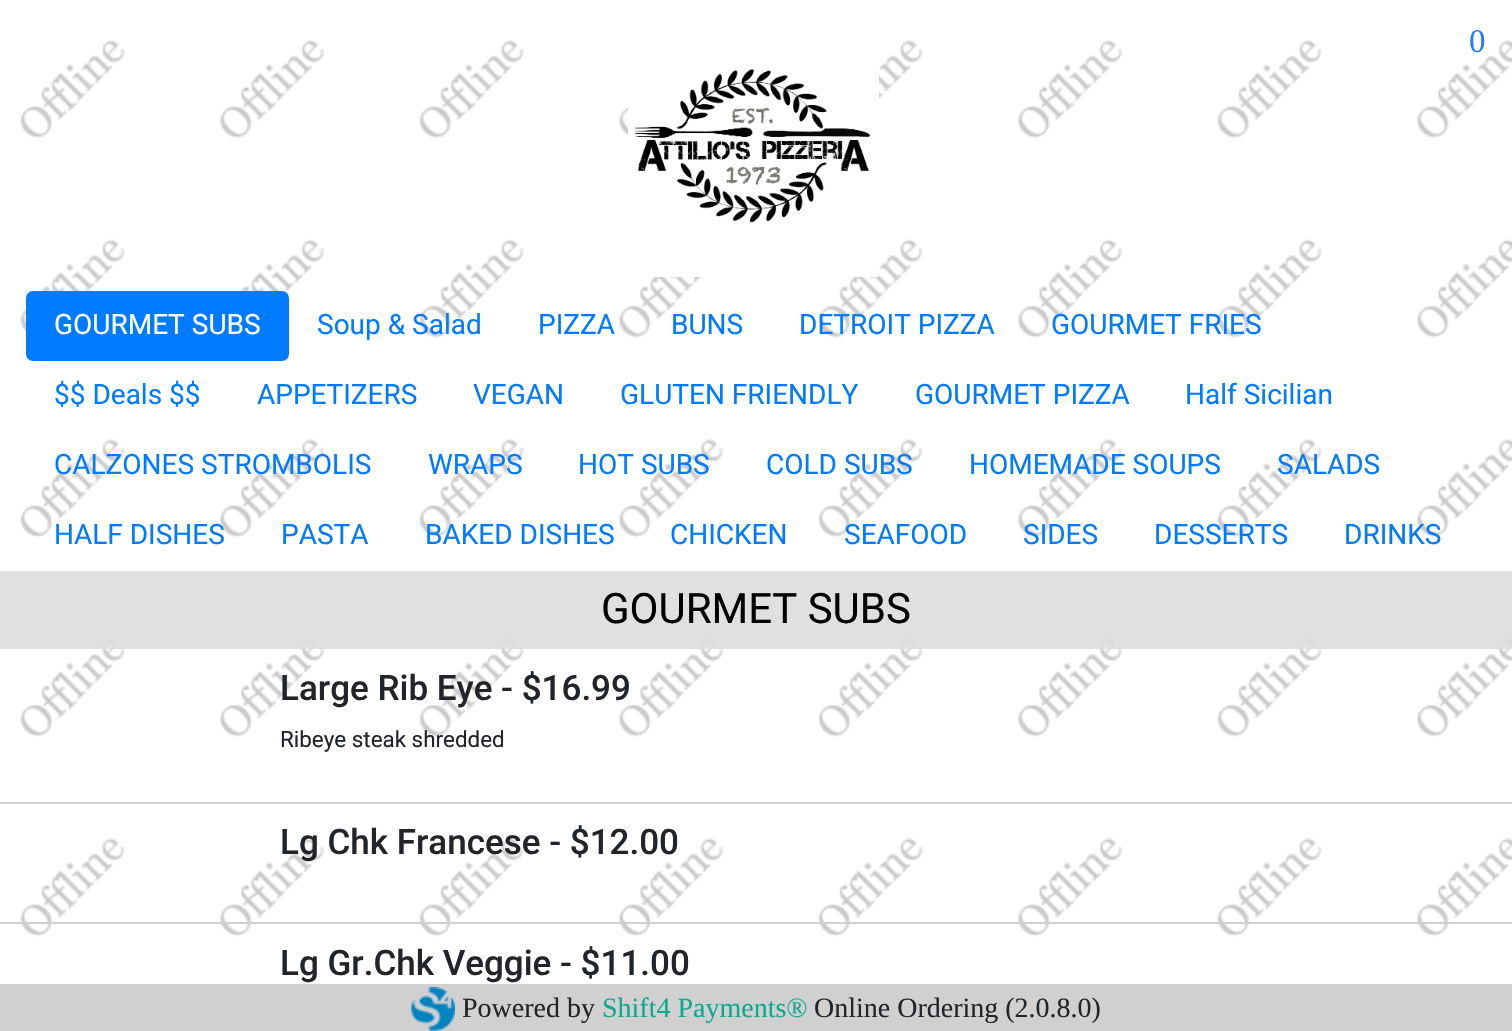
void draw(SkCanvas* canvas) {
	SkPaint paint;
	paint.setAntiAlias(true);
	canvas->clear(0xffffffff);
	canvas->drawImageRect(SkImages::DeferredFromEncodedData(SkData::MakeFromFileName("img1.png")), SkRect::MakeXYWH(20, 40, 1492, 897), SkSamplingOptions());
	paint.setColor(0xffffffff);
	canvas->drawRect(SkRect::MakeXYWH(628, 40, 251, 237), paint);
	canvas->drawImageRect(SkImages::DeferredFromEncodedData(SkData::MakeFromFileName("img2.png")), SkRect::MakeXYWH(634, 69, 237, 154), SkSamplingOptions());
	SkFont f1(fontMgr->matchFamilyStyle("Liberation Serif", SkFontStyle::Normal()), 33);
	f1.setSubpixel(true);
	paint.setColor(0xff227bff);
	canvas->drawString("0", 1469, 52, f1, paint);
	paint.setColor(0xff007bff);
	canvas->drawRoundRect(SkRect::MakeXYWH(26, 291, 263, 70), 7, 7, paint);
	SkFont f2(fontMgr->matchFamilyStyle("Roboto", SkFontStyle::Normal()), 28);
	f2.setSubpixel(true);
	paint.setColor(0xffffffff);
	canvas->drawString("GOURMET SUBS", 54, 334, f2, paint);
	paint.setColor(0xff007bff);
	canvas->drawString("Soup & Salad", 317, 334, f2, paint);
	canvas->drawString("PIZZA", 538, 334, f2, paint);
	canvas->drawString("BUNS", 671, 334, f2, paint);
	canvas->drawString("DETROIT PIZZA", 799, 334, f2, paint);
	canvas->drawString("GOURMET FRIES", 1051, 334, f2, paint);
	canvas->drawString("$$ Deals $$", 54, 404, f2, paint);
	canvas->drawString("APPETIZERS", 257, 404, f2, paint);
	canvas->drawString("VEGAN", 473, 404, f2, paint);
	canvas->drawString("GLUTEN FRIENDLY", 620, 404, f2, paint);
	canvas->drawString("GOURMET PIZZA", 915, 404, f2, paint);
	canvas->drawString("Half Sicilian", 1185, 404, f2, paint);
	canvas->drawString("CALZONES STROMBOLIS", 54, 474, f2, paint);
	canvas->drawString("WRAPS", 428, 474, f2, paint);
	canvas->drawString("HOT SUBS", 578, 474, f2, paint);
	canvas->drawString("COLD SUBS", 766, 474, f2, paint);
	canvas->drawString("HOMEMADE SOUPS", 969, 474, f2, paint);
	canvas->drawString("SALADS", 1277, 474, f2, paint);
	canvas->drawString("HALF DISHES", 54, 544, f2, paint);
	canvas->drawString("PASTA", 281, 544, f2, paint);
	canvas->drawString("BAKED DISHES", 425, 544, f2, paint);
	canvas->drawString("CHICKEN", 670, 544, f2, paint);
	canvas->drawString("SEAFOOD", 844, 544, f2, paint);
	canvas->drawString("SIDES", 1023, 544, f2, paint);
	canvas->drawString("DESSERTS", 1154, 544, f2, paint);
	canvas->drawString("DRINKS", 1344, 544, f2, paint);
	paint.setColor(0xe0dcdcdc);
	canvas->drawRect(SkRect::MakeXYWH(0, 571, 1512, 78), paint);
	SkFont f3(fontMgr->matchFamilyStyle("Roboto", SkFontStyle::Normal()), 42);
	f3.setSubpixel(true);
	paint.setColor(0xff000000);
	canvas->drawString("GOURMET SUBS", 601, 623, f3, paint);
	paint.setColor(0xffd0d0d0);
	canvas->drawRect(SkRect::MakeXYWH(0, 802, 1512, 2), paint);
	SkFont f4(fontMgr->matchFamilyStyle("Roboto", SkFontStyle(500, SkFontStyle::kNormal_Width, SkFontStyle::kUpright_Slant)), 35);
	f4.setSubpixel(true);
	paint.setColor(0xff212529);
	canvas->drawString("Large Rib Eye - $16.99", 280, 700, f4, paint);
	SkFont f5(fontMgr->matchFamilyStyle("Roboto", SkFontStyle::Normal()), 22.4);
	f5.setSubpixel(true);
	canvas->drawString("Ribeye steak shredded", 280, 747, f5, paint);
	paint.setColor(0xffd0d0d0);
	canvas->drawRect(SkRect::MakeXYWH(0, 922, 1512, 2), paint);
	paint.setColor(0xff212529);
	canvas->drawString("Lg Chk Francese - $12.00", 280, 854, f4, paint);
	canvas->drawString("Lg Gr.Chk Veggie - $11.00", 280, 975, f4, paint);
	paint.setColor(0xffd0d0d0);
	canvas->drawRect(SkRect::MakeXYWH(0, 984, 1512, 47), paint);
	canvas->drawImageRect(SkImages::DeferredFromEncodedData(SkData::MakeFromFileName("img3.png")), SkRect::MakeXYWH(411, 987, 44, 44), SkSamplingOptions());
	SkFont f6(fontMgr->matchFamilyStyle("Liberation Serif", SkFontStyle::Normal()), 28);
	f6.setSubpixel(true);
	paint.setColor(0xff212529);
	canvas->drawString("Powered by", 462, 1017, f6, paint);
	paint.setColor(0xff0da88e);
	canvas->drawString("Shift4 Payments®", 602, 1017, f6, paint);
	paint.setColor(0xff212529);
	canvas->drawString("Online Ordering (2.0.8.0)", 814, 1017, f6, paint);
}
